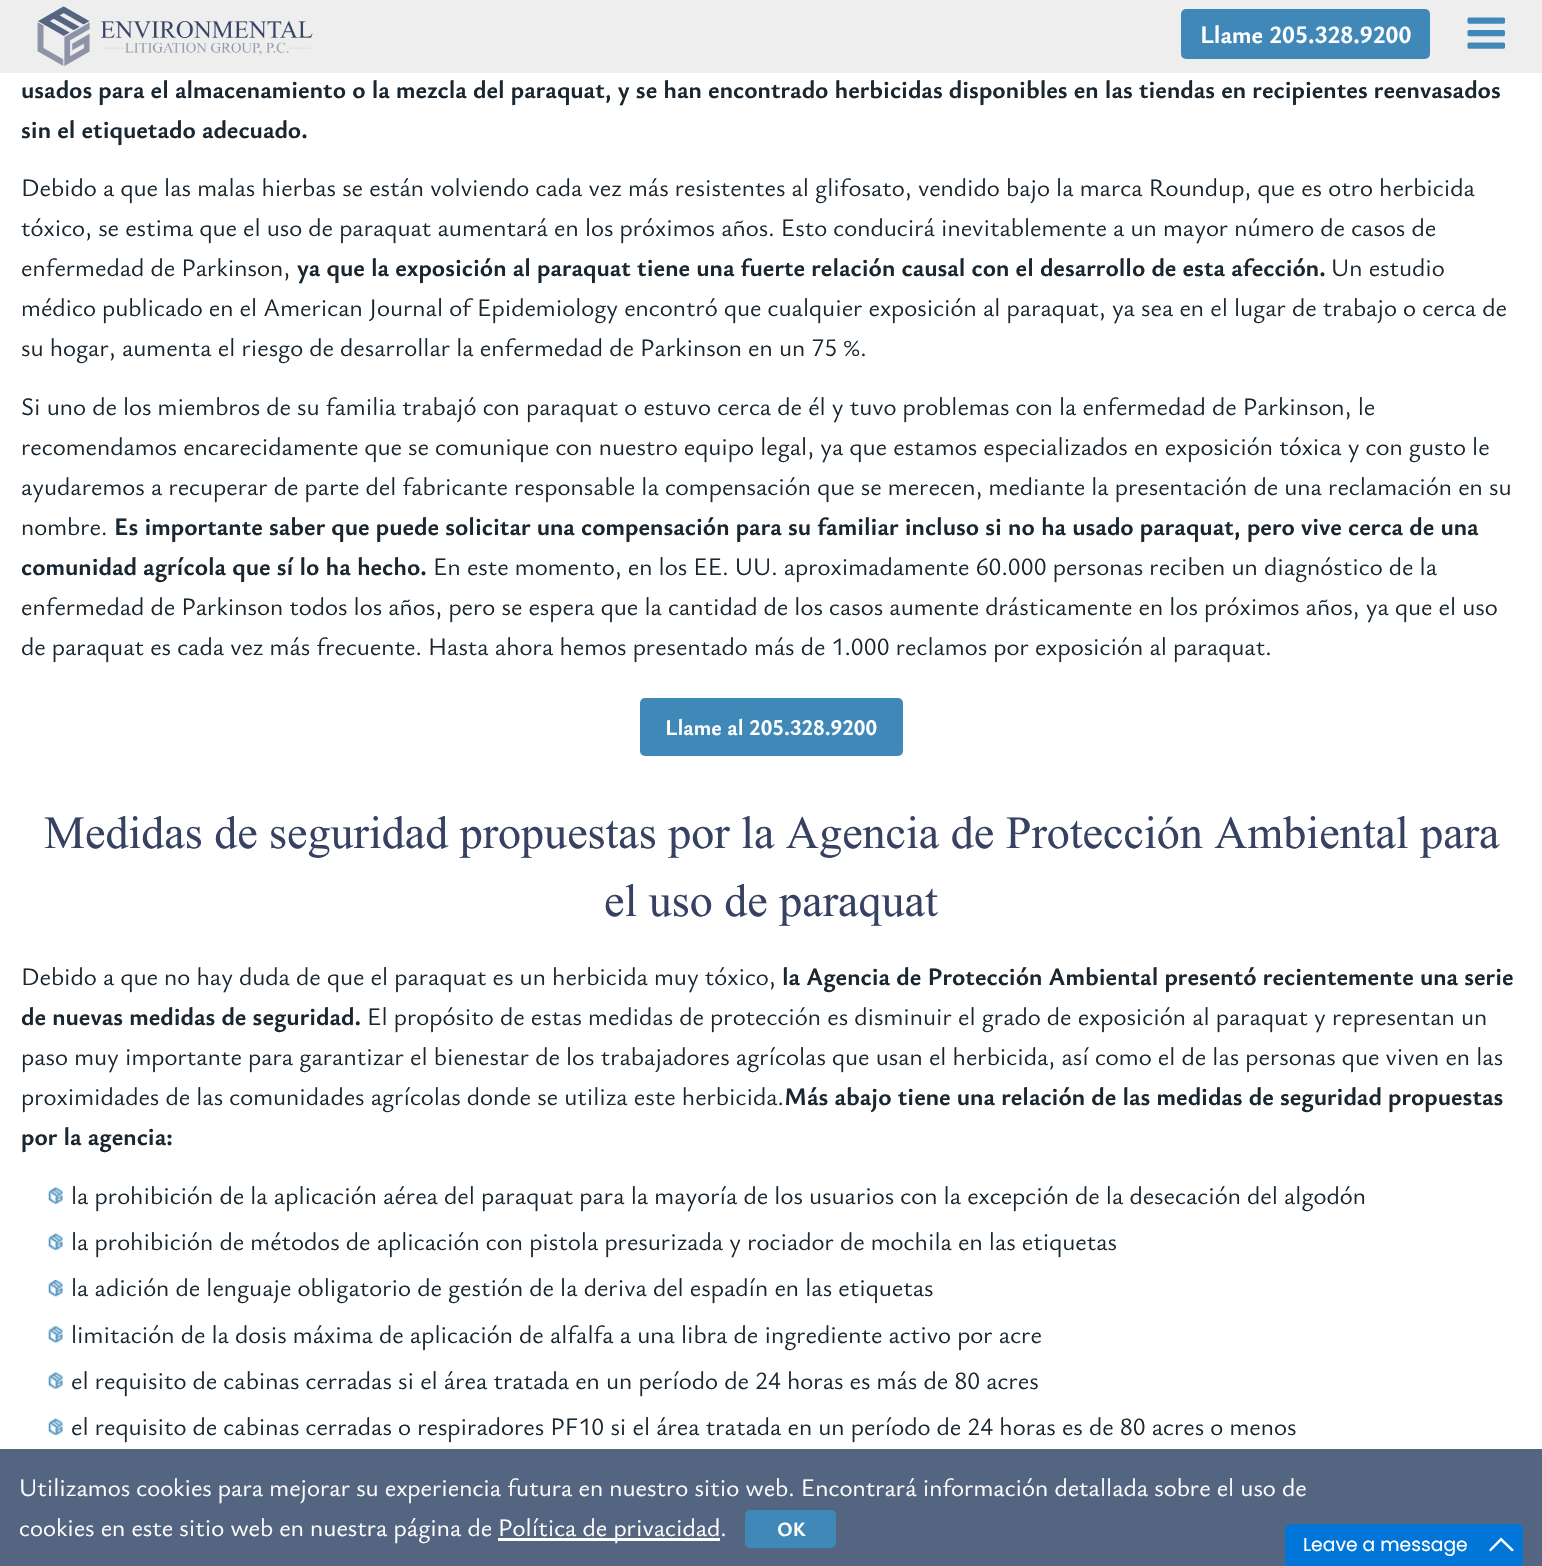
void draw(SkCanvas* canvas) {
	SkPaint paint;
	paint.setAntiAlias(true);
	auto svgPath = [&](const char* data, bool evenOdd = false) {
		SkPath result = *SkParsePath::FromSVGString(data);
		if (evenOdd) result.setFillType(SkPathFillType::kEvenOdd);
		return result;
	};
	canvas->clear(0xffffffff);
	paint.setColor(0xffeeeeee);
	canvas->drawRect(SkRect::MakeXYWH(0, 0, 1542, 73), paint);
	canvas->drawImageRect(SkImages::DeferredFromEncodedData(SkData::MakeFromFileName("img1.png")), SkRect::MakeXYWH(37, 6, 276, 60), SkSamplingOptions());
	paint.setColor(0xff4088b8);
	canvas->drawRoundRect(SkRect::MakeXYWH(1181, 9, 249, 50), 5, 5, paint);
	SkFont f1(fontMgr->matchFamilyStyle("Ysabeau Office", SkFontStyle::Bold()), 25);
	f1.setSubpixel(true);
	paint.setColor(0xffffffff);
	canvas->drawString("Llame 205.328.9200", 1200, 43, f1, paint);
	canvas->drawImageRect(SkImages::DeferredFromEncodedData(SkData::MakeFromFileName("img2.png")), SkRect::MakeXYWH(1467, 17, 38, 32), SkSamplingOptions());
	paint.setColor(0xff1a2730);
	canvas->drawString("usados para el almacenamiento o la mezcla del paraquat, y se han encontrado herbicidas disponibles en las tiendas en recipientes reenvasados", 21, 98, f1, paint);
	canvas->drawString("sin el etiquetado adecuado.", 21, 138, f1, paint);
	SkFont f2(fontMgr->matchFamilyStyle("Ysabeau Office", SkFontStyle::Normal()), 25);
	f2.setSubpixel(true);
	canvas->drawString("Debido a que las malas hierbas se están volviendo cada vez más resistentes al glifosato, vendido bajo la marca Roundup, que es otro herbicida", 21, 196, f2, paint);
	canvas->drawString("tóxico, se estima que el uso de paraquat aumentará en los próximos años. Esto conducirá inevitablemente a un mayor número de casos de", 21, 236, f2, paint);
	canvas->drawString("enfermedad de Parkinson,", 21, 276, f2, paint);
	canvas->drawString("ya que la exposición al paraquat tiene una fuerte relación causal con el desarrollo de esta afección.", 297, 276, f1, paint);
	canvas->drawString("Un estudio", 1331, 276, f2, paint);
	canvas->drawString("médico publicado en el American Journal of Epidemiology encontró que cualquier exposición al paraquat, ya sea en el lugar de trabajo o cerca de", 21, 316, f2, paint);
	canvas->drawString("su hogar, aumenta el riesgo de desarrollar la enfermedad de Parkinson en un 75 %.", 21, 356, f2, paint);
	canvas->drawString("Si uno de los miembros de su familia trabajó con paraquat o estuvo cerca de él y tuvo problemas con la enfermedad de Parkinson, le", 21, 415, f2, paint);
	canvas->drawString("recomendamos encarecidamente que se comunique con nuestro equipo legal, ya que estamos especializados en exposición tóxica y con gusto le", 21, 455, f2, paint);
	canvas->drawString("ayudaremos a recuperar de parte del fabricante responsable la compensación que se merecen, mediante la presentación de una reclamación en su", 21, 495, f2, paint);
	canvas->drawString("nombre.", 21, 535, f2, paint);
	canvas->drawString("Es importante saber que puede solicitar una compensación para su familiar incluso si no ha usado paraquat, pero vive cerca de una", 114, 535, f1, paint);
	canvas->drawString("comunidad agrícola que sí lo ha hecho.", 21, 575, f1, paint);
	canvas->drawString("En este momento, en los EE. UU. aproximadamente 60.000 personas reciben un diagnóstico de la", 433, 575, f2, paint);
	canvas->drawString("enfermedad de Parkinson todos los años, pero se espera que la cantidad de los casos aumente drásticamente en los próximos años, ya que el uso", 21, 615, f2, paint);
	canvas->drawString("de paraquat es cada vez más frecuente. Hasta ahora hemos presentado más de 1.000 reclamos por exposición al paraquat.", 21, 655, f2, paint);
	paint.setColor(0xff4088b8);
	canvas->drawRoundRect(SkRect::MakeXYWH(640, 698, 263, 58), 5, 5, paint);
	SkFont f3(fontMgr->matchFamilyStyle("Ysabeau Office", SkFontStyle::Bold()), 22.5);
	f3.setSubpixel(true);
	paint.setColor(0xffffffff);
	canvas->drawString("Llame al 205.328.9200", 665, 735, f3, paint);
	SkFont f4(fontMgr->matchFamilyStyle("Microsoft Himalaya", SkFontStyle::Normal()), 68.75);
	f4.setSubpixel(true);
	paint.setColor(0xff374263);
	canvas->drawString("Medidas de seguridad propuestas por la Agencia de Protección Ambiental para", 44, 848, f4, paint);
	canvas->drawString("el uso de paraquat", 604, 916, f4, paint);
	paint.setColor(0xff1a2730);
	canvas->drawString("Debido a que no hay duda de que el paraquat es un herbicida muy tóxico,", 21, 985, f2, paint);
	canvas->drawString("la Agencia de Protección Ambiental presentó recientemente una serie", 782, 985, f1, paint);
	canvas->drawString("de nuevas medidas de seguridad.", 21, 1025, f1, paint);
	canvas->drawString("El propósito de estas medidas de protección es disminuir el grado de exposición al paraquat y representan un", 367, 1025, f2, paint);
	canvas->drawString("paso muy importante para garantizar el bienestar de los trabajadores agrícolas que usan el herbicida, así como el de las personas que viven en las", 21, 1065, f2, paint);
	canvas->drawString("proximidades de las comunidades agrícolas donde se utiliza este herbicida.", 21, 1105, f2, paint);
	canvas->drawString("Más abajo tiene una relación de las medidas de seguridad propuestas", 784, 1105, f1, paint);
	canvas->drawString("por la agencia:", 21, 1145, f1, paint);
	canvas->drawImageRect(SkImages::DeferredFromEncodedData(SkData::MakeFromFileName("img3.png")), SkRect::MakeXYWH(48, 1187, 15, 17), SkSamplingOptions());
	canvas->drawString("la prohibición de la aplicación aérea del paraquat para la mayoría de los usuarios con la excepción de la desecación del algodón", 71, 1204, f2, paint);
	canvas->drawImageRect(SkImages::DeferredFromEncodedData(SkData::MakeFromFileName("img4.png")), SkRect::MakeXYWH(48, 1233, 15, 17), SkSamplingOptions());
	canvas->drawString("la prohibición de métodos de aplicación con pistola presurizada y rociador de mochila en las etiquetas", 71, 1250, f2, paint);
	canvas->drawImageRect(SkImages::DeferredFromEncodedData(SkData::MakeFromFileName("img5.png")), SkRect::MakeXYWH(48, 1280, 15, 17), SkSamplingOptions());
	canvas->drawString("la adición de lenguaje obligatorio de gestión de la deriva del espadín en las etiquetas", 71, 1296, f2, paint);
	canvas->drawImageRect(SkImages::DeferredFromEncodedData(SkData::MakeFromFileName("img6.png")), SkRect::MakeXYWH(48, 1326, 15, 17), SkSamplingOptions());
	canvas->drawString("limitación de la dosis máxima de aplicación de alfalfa a una libra de ingrediente activo por acre", 71, 1343, f2, paint);
	canvas->drawImageRect(SkImages::DeferredFromEncodedData(SkData::MakeFromFileName("img3.png")), SkRect::MakeXYWH(48, 1372, 15, 17), SkSamplingOptions());
	canvas->drawString("el requisito de cabinas cerradas si el área tratada en un período de 24 horas es más de 80 acres", 71, 1389, f2, paint);
	canvas->drawImageRect(SkImages::DeferredFromEncodedData(SkData::MakeFromFileName("img4.png")), SkRect::MakeXYWH(48, 1418, 15, 17), SkSamplingOptions());
	canvas->drawString("el requisito de cabinas cerradas o respiradores PF10 si el área tratada en un período de 24 horas es de 80 acres o menos", 71, 1435, f2, paint);
	paint.setColor(0xff536580);
	canvas->drawRect(SkRect::MakeXYWH(0, 1449, 1542, 117), paint);
	paint.setColor(0xffffffff);
	canvas->drawString("Utilizamos cookies para mejorar su experiencia futura en nuestro sitio web. Encontrará información detallada sobre el uso de", 19, 1496, f2, paint);
	canvas->drawString("cookies en este sitio web en nuestra página de", 19, 1536, f2, paint);
	canvas->drawRect(SkRect::MakeXYWH(498, 1538, 222, 3), paint);
	canvas->drawString("Política de privacidad.", 498, 1536, f2, paint);
	paint.setColor(0xff4088b8);
	canvas->drawRoundRect(SkRect::MakeXYWH(745, 1510, 91, 38), 5, 5, paint);
	SkFont f5(fontMgr->matchFamilyStyle("Ysabeau Office", SkFontStyle::Bold()), 20);
	f5.setSubpixel(true);
	paint.setColor(0xffffffff);
	canvas->drawString("OK", 777, 1536, f5, paint);
	paint.setColor(0xff0275d8);
	canvas->drawPath(svgPath("M1291 1524H1517C1520.5 1524 1523 1526.5 1523 1530V1566H1285V1530C1285 1526.5 1287.5 1524 1291 1524Z"), paint);
	SkFont f6(fontMgr->matchFamilyStyle("Poppins", SkFontStyle::Normal()), 18.75);
	f6.setSubpixel(true);
	paint.setColor(0xffffffff);
	canvas->drawString("Leave a message", 1303, 1551, f6, paint);
	canvas->drawPath(svgPath("M1501 1537.5L1514 1550L1512 1551.5L1501 1541L1490.5 1551.5L1489 1550Z"), paint);
}
